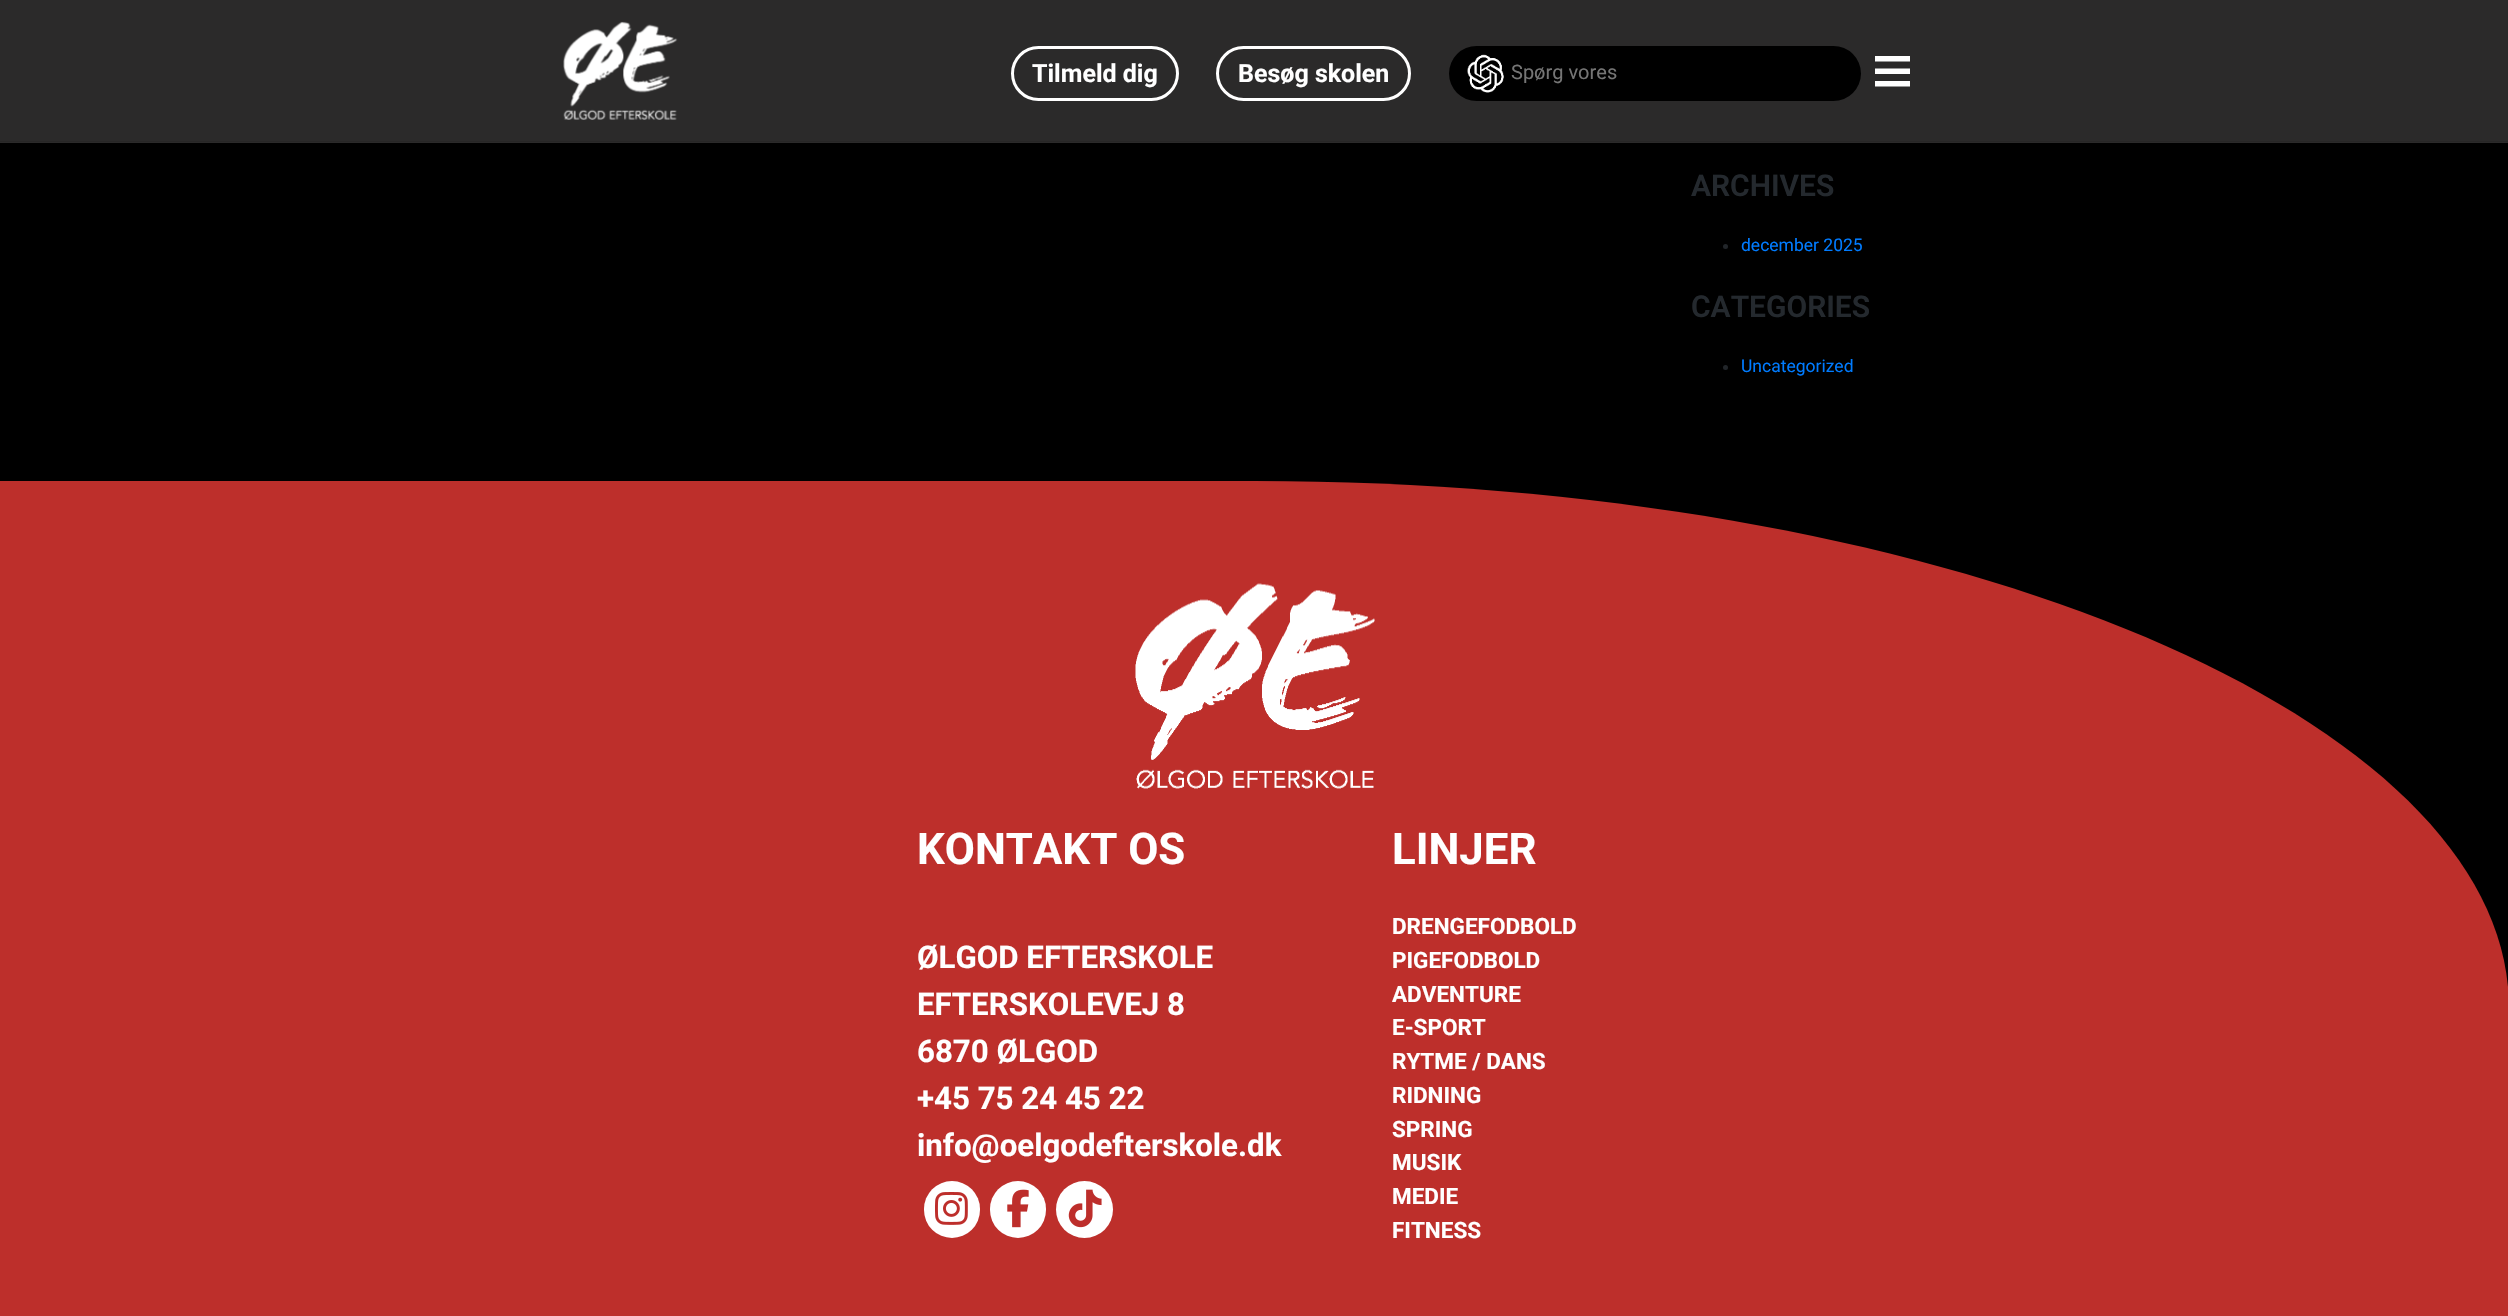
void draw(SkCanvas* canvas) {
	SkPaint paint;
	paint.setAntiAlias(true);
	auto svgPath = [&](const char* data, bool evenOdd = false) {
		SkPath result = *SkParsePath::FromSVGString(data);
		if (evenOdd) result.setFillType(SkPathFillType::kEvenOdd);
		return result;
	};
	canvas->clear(0xff000000);
	paint.setColor(0xff2b2a2a);
	canvas->drawRect(SkRect::MakeXYWH(0, 0, 2508, 143), paint);
	paint.setColor(0xff272626);
	canvas->drawRect(SkRect::MakeXYWH(0, 141, 2508, 1), paint);
	canvas->drawImageRect(SkImages::DeferredFromEncodedData(SkData::MakeFromFileName("img1.png")), SkRect::MakeXYWH(563, 21, 115, 99), SkSamplingOptions());
	paint.setStroke(true);
	paint.setStrokeWidth(3);
	paint.setColor(0xffffffff);
	canvas->drawRoundRect(SkRect::MakeXYWH(1012.5, 47.5, 165, 52), 26, 26, paint);
	SkFont f1(fontMgr->matchFamilyStyle("Roboto", SkFontStyle::Bold()), 25);
	f1.setSubpixel(true);
	paint.setStroke(false);
	canvas->drawString("Tilmeld dig", 1032, 82, f1, paint);
	paint.setStroke(true);
	canvas->drawRoundRect(SkRect::MakeXYWH(1217.5, 47.5, 192, 52), 26, 26, paint);
	paint.setStroke(false);
	canvas->drawString("Besøg skolen", 1238, 82, f1, paint);
	paint.setColor(0xff000000);
	canvas->drawRoundRect(SkRect::MakeXYWH(1449, 46, 412, 55), 27.5, 27.5, paint);
	canvas->drawImageRect(SkImages::DeferredFromEncodedData(SkData::MakeFromFileName("img2.png")), SkRect::MakeXYWH(1467, 54, 37, 39), SkSamplingOptions());
	SkFont f2(fontMgr->matchFamilyStyle("Roboto", SkFontStyle::Normal()), 20);
	f2.setSubpixel(true);
	paint.setColor(0xff757575);
	canvas->drawString("Spørg vores", 1511, 79, f2, paint);
	paint.setColor(0xffffffff);
	canvas->drawPath(svgPath("M1875 74H1910V68.5H1875ZM1875 86.5H1910V81H1875ZM1875 56V61.5H1910V56Z"), paint);
	SkFont f3(fontMgr->matchFamilyStyle("Roboto", SkFontStyle(600, SkFontStyle::kNormal_Width, SkFontStyle::kUpright_Slant)), 30);
	f3.setSubpixel(true);
	paint.setColor(0xff24292e);
	canvas->drawString("ARCHIVES", 1691, 196, f3, paint);
	paint.setColor(0xff212529);
	canvas->drawCircle(1725.5, 246.5, 2.5, paint);
	SkFont f4(fontMgr->matchFamilyStyle("Roboto", SkFontStyle::Normal()), 17.5);
	f4.setSubpixel(true);
	paint.setColor(0xff007bff);
	canvas->drawString("december 2025", 1741, 251, f4, paint);
	paint.setColor(0xff24292e);
	canvas->drawString("CATEGORIES", 1691, 317, f3, paint);
	paint.setColor(0xff212529);
	canvas->drawCircle(1725.5, 367.5, 2.5, paint);
	paint.setColor(0xff007bff);
	canvas->drawString("Uncategorized", 1741, 372, f4, paint);
	paint.setColor(0xffbd2f2b);
	canvas->drawPath(svgPath("M0 481H1254C1947 481 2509 717 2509 1008V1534H0Z"), paint);
	canvas->drawImageRect(SkImages::DeferredFromEncodedData(SkData::MakeFromFileName("img3.png")), SkRect::MakeXYWH(1135, 583, 240, 206), SkSamplingOptions());
	SkFont f5(fontMgr->matchFamilyStyle("Roboto", SkFontStyle::Bold()), 43.75);
	f5.setSubpixel(true);
	paint.setColor(0xffffffff);
	canvas->drawString("KONTAKT OS", 917, 864, f5, paint);
	SkFont f6(fontMgr->matchFamilyStyle("Roboto", SkFontStyle::Bold()), 31.25);
	f6.setSubpixel(true);
	canvas->drawString("ØLGOD EFTERSKOLE", 917, 968, f6, paint);
	canvas->drawString("EFTERSKOLEVEJ 8", 917, 1015, f6, paint);
	canvas->drawString("6870 ØLGOD", 917, 1062, f6, paint);
	canvas->drawString("+45 75 24 45 22", 917, 1109, f6, paint);
	canvas->drawString("info@oelgodefterskole.dk", 917, 1156, f6, paint);
	canvas->drawRoundRect(SkRect::MakeXYWH(924, 1181, 56, 57), 28, 28, paint);
	canvas->drawImageRect(SkImages::DeferredFromEncodedData(SkData::MakeFromFileName("img4.png")), SkRect::MakeXYWH(935, 1192, 33, 33), SkSamplingOptions());
	canvas->drawRoundRect(SkRect::MakeXYWH(990, 1181, 56, 57), 28, 28, paint);
	canvas->drawImageRect(SkImages::DeferredFromEncodedData(SkData::MakeFromFileName("img5.png")), SkRect::MakeXYWH(1007, 1189, 22, 39), SkSamplingOptions());
	canvas->drawCircle(1084.5, 1209.5, 28.5, paint);
	canvas->drawImageRect(SkImages::DeferredFromEncodedData(SkData::MakeFromFileName("img6.png")), SkRect::MakeXYWH(1068, 1189, 34, 39), SkSamplingOptions());
	canvas->drawString("LINJER", 1392, 864, f5, paint);
	SkFont f7(fontMgr->matchFamilyStyle("Roboto", SkFontStyle::Bold()), 22.5);
	f7.setSubpixel(true);
	canvas->drawString("DRENGEFODBOLD", 1392, 934, f7, paint);
	canvas->drawString("PIGEFODBOLD", 1392, 968, f7, paint);
	canvas->drawString("ADVENTURE", 1392, 1002, f7, paint);
	canvas->drawString("E-SPORT", 1392, 1035, f7, paint);
	canvas->drawString("RYTME / DANS", 1392, 1069, f7, paint);
	canvas->drawString("RIDNING", 1392, 1103, f7, paint);
	canvas->drawString("SPRING", 1392, 1137, f7, paint);
	canvas->drawString("MUSIK", 1392, 1170, f7, paint);
	canvas->drawString("MEDIE", 1392, 1204, f7, paint);
	canvas->drawString("FITNESS", 1392, 1238, f7, paint);
}
